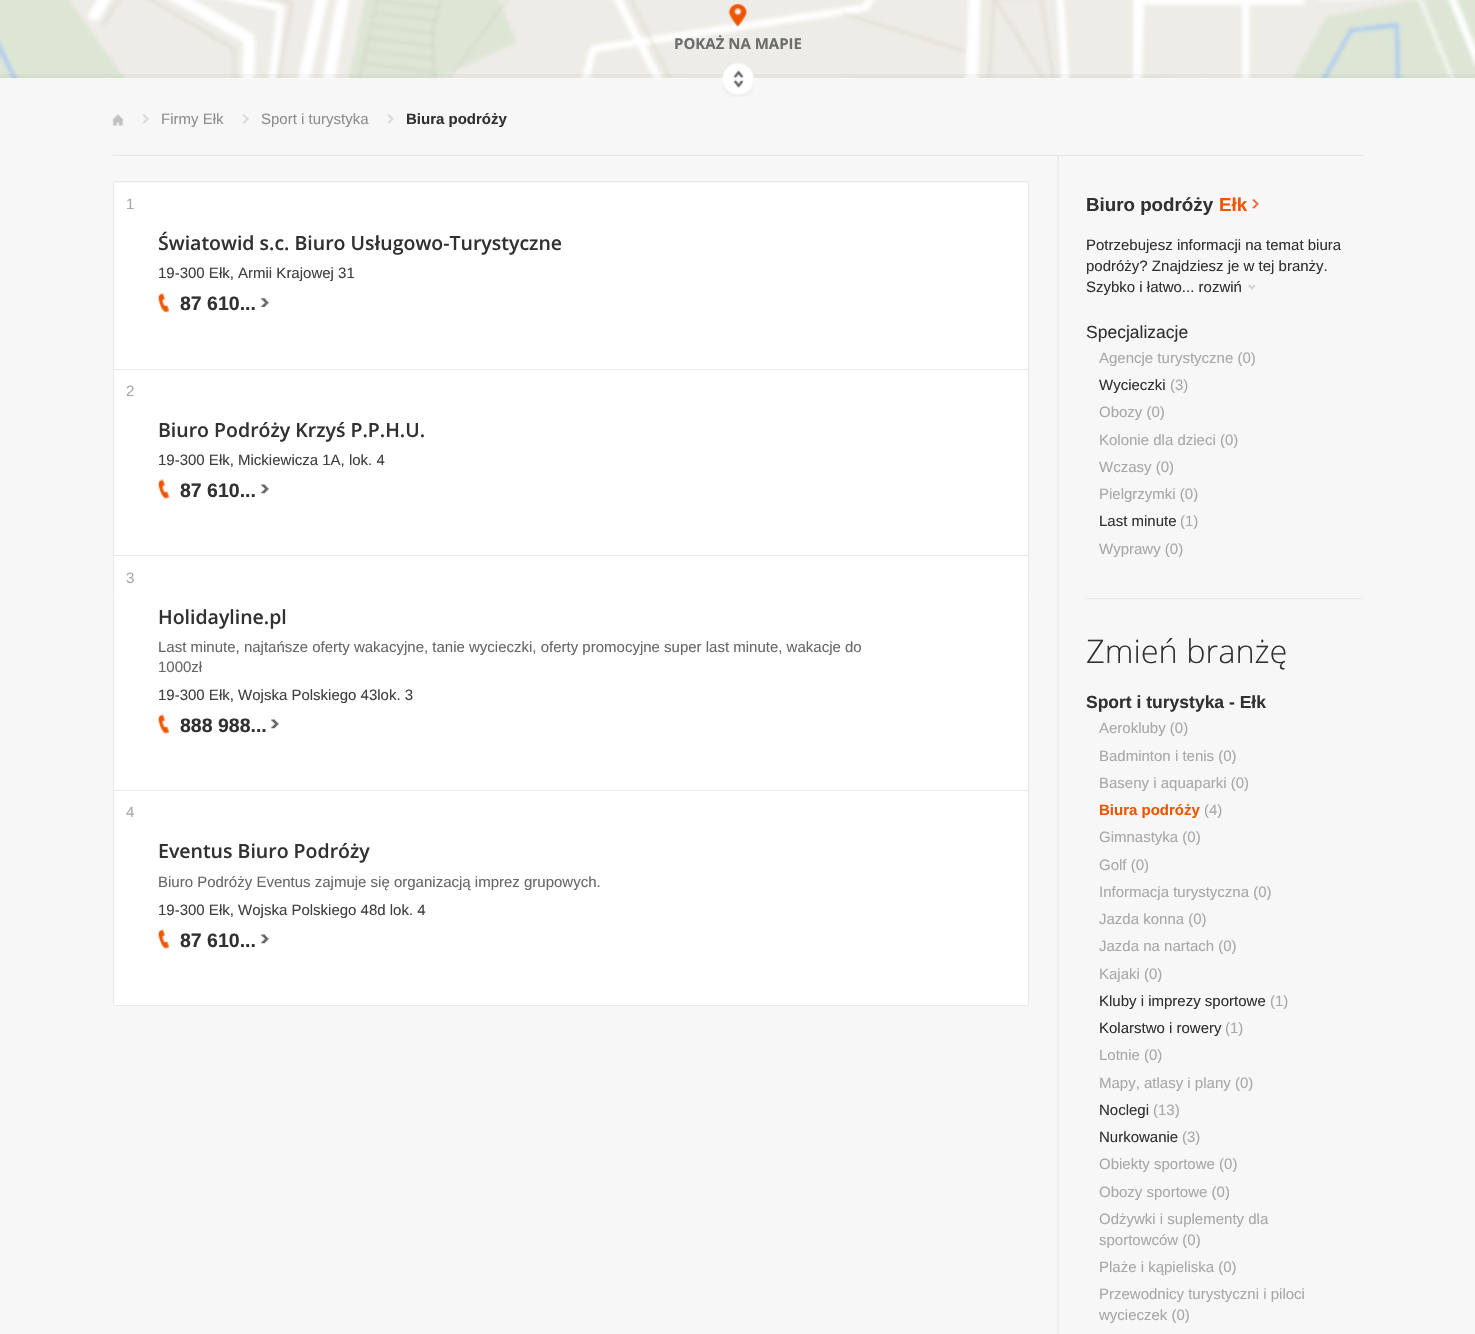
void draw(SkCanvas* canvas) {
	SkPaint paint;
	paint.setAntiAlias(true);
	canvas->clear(0xfff7f7f7);
	paint.setColor(0xfffbfbfb);
	canvas->drawRect(SkRect::MakeXYWH(0, 78, 1475, 1), paint);
	canvas->drawImageRect(SkImages::DeferredFromEncodedData(SkData::MakeFromFileName("img1.png")), SkRect::MakeXYWH(0, 0, 1475, 79), SkSamplingOptions());
	canvas->drawImageRect(SkImages::DeferredFromEncodedData(SkData::MakeFromFileName("img2.png")), SkRect::MakeXYWH(728, 3, 19, 24), SkSamplingOptions());
	SkFont f1(fontMgr->matchFamilyStyle("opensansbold", SkFontStyle::Bold()), 15);
	f1.setSubpixel(true);
	paint.setColor(0xff6d6d6d);
	canvas->drawString("POKAŻ NA MAPIE", 674, 49, f1, paint);
	paint.setColor(0x08000000);
	canvas->drawRect(SkRect::MakeXYWH(0, 74, 1475, 4), paint);
	canvas->drawImageRect(SkImages::DeferredFromEncodedData(SkData::MakeFromFileName("img3.png")), SkRect::MakeXYWH(722, 63, 32, 34), SkSamplingOptions());
	paint.setColor(0xffe7e7e7);
	canvas->drawRect(SkRect::MakeXYWH(113, 155, 1250, 1), paint);
	canvas->drawImageRect(SkImages::DeferredFromEncodedData(SkData::MakeFromFileName("img4.png")), SkRect::MakeXYWH(112, 114, 12, 12), SkSamplingOptions());
	canvas->drawImageRect(SkImages::DeferredFromEncodedData(SkData::MakeFromFileName("img5.png")), SkRect::MakeXYWH(142, 114, 7, 10), SkSamplingOptions());
	SkFont f2(fontMgr->matchFamilyStyle("Liberation Sans", SkFontStyle::Normal()), 15);
	f2.setSubpixel(true);
	paint.setColor(0xff8e8e8e);
	canvas->drawString("Firmy Ełk", 161, 124, f2, paint);
	canvas->drawImageRect(SkImages::DeferredFromEncodedData(SkData::MakeFromFileName("img5.png")), SkRect::MakeXYWH(242, 114, 7, 10), SkSamplingOptions());
	canvas->drawString("Sport i turystyka", 261, 124, f2, paint);
	canvas->drawImageRect(SkImages::DeferredFromEncodedData(SkData::MakeFromFileName("img6.png")), SkRect::MakeXYWH(387, 114, 7, 10), SkSamplingOptions());
	SkFont f3(fontMgr->matchFamilyStyle("Liberation Sans", SkFontStyle::Bold()), 15);
	f3.setSubpixel(true);
	paint.setColor(0xff313131);
	canvas->drawString("Biura podróży", 406, 124, f3, paint);
	canvas->drawImageRect(SkImages::DeferredFromEncodedData(SkData::MakeFromFileName("img7.png")), SkRect::MakeXYWH(1057, 156, 2, 1178), SkSamplingOptions());
	paint.setStroke(true);
	paint.setStrokeWidth(1);
	paint.setColor(0xffe7e7e7);
	canvas->drawRoundRect(SkRect::MakeXYWH(113.5, 181.5, 915, 824), 2, 2, paint);
	paint.setStroke(false);
	paint.setColor(0xffffffff);
	canvas->drawRect(SkRect::MakeXYWH(114, 183, 914, 186), paint);
	paint.setColor(0xffa8a8a8);
	canvas->drawString("1", 126, 209, f2, paint);
	SkFont f4(fontMgr->matchFamilyStyle("Open Sans", SkFontStyle(600, SkFontStyle::kNormal_Width, SkFontStyle::kUpright_Slant)), 19.5);
	f4.setSubpixel(true);
	paint.setColor(0xff313131);
	canvas->drawString("Światowid s.c. Biuro Usługowo-Turystyczne", 158, 250, f4, paint);
	paint.setColor(0xff3f3f3f);
	canvas->drawString("19-300 Ełk, Armii Krajowej 31", 158, 278, f2, paint);
	canvas->drawImageRect(SkImages::DeferredFromEncodedData(SkData::MakeFromFileName("img8.png")), SkRect::MakeXYWH(158, 293, 12, 20), SkSamplingOptions());
	SkFont f5(fontMgr->matchFamilyStyle("Liberation Sans", SkFontStyle::Bold()), 19.5);
	f5.setSubpixel(true);
	paint.setColor(0xff313131);
	canvas->drawString("87 610...", 180, 310, f5, paint);
	canvas->drawImageRect(SkImages::DeferredFromEncodedData(SkData::MakeFromFileName("img9.png")), SkRect::MakeXYWH(261, 298, 8, 9), SkSamplingOptions());
	paint.setColor(0xffffffff);
	canvas->drawRect(SkRect::MakeXYWH(114, 370, 914, 185), paint);
	paint.setColor(0xffeaeaea);
	canvas->drawRect(SkRect::MakeXYWH(114, 369, 914, 1), paint);
	paint.setColor(0xffa8a8a8);
	canvas->drawString("2", 126, 396, f2, paint);
	paint.setColor(0xff313131);
	canvas->drawString("Biuro Podróży Krzyś P.P.H.U.", 158, 437, f4, paint);
	paint.setColor(0xff3f3f3f);
	canvas->drawString("19-300 Ełk, Mickiewicza 1A, lok. 4", 158, 465, f2, paint);
	canvas->drawImageRect(SkImages::DeferredFromEncodedData(SkData::MakeFromFileName("img10.png")), SkRect::MakeXYWH(158, 479, 12, 20), SkSamplingOptions());
	paint.setColor(0xff313131);
	canvas->drawString("87 610...", 180, 497, f5, paint);
	canvas->drawImageRect(SkImages::DeferredFromEncodedData(SkData::MakeFromFileName("img11.png")), SkRect::MakeXYWH(261, 484, 8, 10), SkSamplingOptions());
	paint.setColor(0xffffffff);
	canvas->drawRect(SkRect::MakeXYWH(114, 556, 914, 234), paint);
	paint.setColor(0xffeaeaea);
	canvas->drawRect(SkRect::MakeXYWH(114, 555, 914, 1), paint);
	paint.setColor(0xffa8a8a8);
	canvas->drawString("3", 126, 583, f2, paint);
	paint.setColor(0xff313131);
	canvas->drawString("Holidayline.pl", 158, 624, f4, paint);
	paint.setColor(0xff676767);
	canvas->drawString("Last minute, najtańsze oferty wakacyjne, tanie wycieczki, oferty promocyjne super last minute, wakacje do", 158, 652, f2, paint);
	canvas->drawString("1000zł", 158, 672, f2, paint);
	paint.setColor(0xff3f3f3f);
	canvas->drawString("19-300 Ełk, Wojska Polskiego 43lok. 3", 158, 700, f2, paint);
	canvas->drawImageRect(SkImages::DeferredFromEncodedData(SkData::MakeFromFileName("img12.png")), SkRect::MakeXYWH(158, 714, 12, 20), SkSamplingOptions());
	paint.setColor(0xff313131);
	canvas->drawString("888 988...", 180, 732, f5, paint);
	canvas->drawImageRect(SkImages::DeferredFromEncodedData(SkData::MakeFromFileName("img11.png")), SkRect::MakeXYWH(271, 719, 8, 10), SkSamplingOptions());
	paint.setColor(0xffffffff);
	canvas->drawRect(SkRect::MakeXYWH(114, 791, 914, 214), paint);
	paint.setColor(0xffeaeaea);
	canvas->drawRect(SkRect::MakeXYWH(114, 790, 914, 1), paint);
	paint.setColor(0xffa8a8a8);
	canvas->drawString("4", 126, 817, f2, paint);
	paint.setColor(0xff313131);
	canvas->drawString("Eventus Biuro Podróży", 158, 858, f4, paint);
	paint.setColor(0xff676767);
	canvas->drawString("Biuro Podróży Eventus zajmuje się organizacją imprez grupowych.", 158, 887, f2, paint);
	paint.setColor(0xff3f3f3f);
	canvas->drawString("19-300 Ełk, Wojska Polskiego 48d lok. 4", 158, 915, f2, paint);
	canvas->drawImageRect(SkImages::DeferredFromEncodedData(SkData::MakeFromFileName("img12.png")), SkRect::MakeXYWH(158, 929, 12, 20), SkSamplingOptions());
	paint.setColor(0xff313131);
	canvas->drawString("87 610...", 180, 947, f5, paint);
	canvas->drawImageRect(SkImages::DeferredFromEncodedData(SkData::MakeFromFileName("img11.png")), SkRect::MakeXYWH(261, 934, 8, 10), SkSamplingOptions());
	SkFont f6(fontMgr->matchFamilyStyle("Liberation Sans", SkFontStyle::Bold()), 18.75);
	f6.setSubpixel(true);
	canvas->drawString("Biuro podróży", 1086, 211, f6, paint);
	paint.setColor(0xffef5400);
	canvas->drawString("Ełk", 1219, 211, f6, paint);
	canvas->drawImageRect(SkImages::DeferredFromEncodedData(SkData::MakeFromFileName("img13.png")), SkRect::MakeXYWH(1252, 199, 7, 10), SkSamplingOptions());
	paint.setColor(0xff313131);
	canvas->drawString("Potrzebujesz informacji na temat biura", 1086, 250, f2, paint);
	canvas->drawString("podróży? Znajdziesz je w tej branży.", 1086, 271, f2, paint);
	canvas->drawString("Szybko i łatwo... rozwiń", 1086, 292, f2, paint);
	canvas->drawImageRect(SkImages::DeferredFromEncodedData(SkData::MakeFromFileName("img14.png")), SkRect::MakeXYWH(1248, 284, 7, 6), SkSamplingOptions());
	SkFont f7(fontMgr->matchFamilyStyle("Liberation Sans", SkFontStyle::Normal()), 17.5);
	f7.setSubpixel(true);
	canvas->drawString("Specjalizacje", 1086, 338, f7, paint);
	paint.setColor(0xffa8a8a8);
	canvas->drawString("Agencje turystyczne (0)", 1099, 363, f2, paint);
	paint.setColor(0xff313131);
	canvas->drawString("Wycieczki", 1099, 390, f2, paint);
	paint.setColor(0xffa8a8a8);
	canvas->drawString("(3)", 1170, 390, f2, paint);
	canvas->drawString("Obozy (0)", 1099, 417, f2, paint);
	canvas->drawString("Kolonie dla dzieci (0)", 1099, 445, f2, paint);
	canvas->drawString("Wczasy (0)", 1099, 472, f2, paint);
	canvas->drawString("Pielgrzymki (0)", 1099, 499, f2, paint);
	paint.setColor(0xff313131);
	canvas->drawString("Last minute", 1099, 526, f2, paint);
	paint.setColor(0xffa8a8a8);
	canvas->drawString("(1)", 1180, 526, f2, paint);
	canvas->drawString("Wyprawy (0)", 1099, 554, f2, paint);
	paint.setColor(0xffebebeb);
	canvas->drawRect(SkRect::MakeXYWH(1086, 598, 277, 1), paint);
	SkFont f8(fontMgr->matchFamilyStyle("Open Sans", SkFontStyle(300, SkFontStyle::kNormal_Width, SkFontStyle::kUpright_Slant)), 32.5);
	f8.setSubpixel(true);
	paint.setColor(0xff313131);
	canvas->drawString("Zmień branżę", 1086, 663, f8, paint);
	SkFont f9(fontMgr->matchFamilyStyle("Liberation Sans", SkFontStyle::Bold()), 17.5);
	f9.setSubpixel(true);
	canvas->drawString("Sport i turystyka - Ełk", 1086, 708, f9, paint);
	paint.setColor(0xffa8a8a8);
	canvas->drawString("Aerokluby (0)", 1099, 733, f2, paint);
	canvas->drawString("Badminton i tenis (0)", 1099, 761, f2, paint);
	canvas->drawString("Baseny i aquaparki (0)", 1099, 788, f2, paint);
	paint.setColor(0xffef5400);
	canvas->drawString("Biura podróży", 1099, 815, f3, paint);
	paint.setColor(0xffa8a8a8);
	canvas->drawString("(4)", 1204, 815, f2, paint);
	canvas->drawString("Gimnastyka (0)", 1099, 842, f2, paint);
	canvas->drawString("Golf (0)", 1099, 870, f2, paint);
	canvas->drawString("Informacja turystyczna (0)", 1099, 897, f2, paint);
	canvas->drawString("Jazda konna (0)", 1099, 924, f2, paint);
	canvas->drawString("Jazda na nartach (0)", 1099, 951, f2, paint);
	canvas->drawString("Kajaki (0)", 1099, 979, f2, paint);
	paint.setColor(0xff313131);
	canvas->drawString("Kluby i imprezy sportowe", 1099, 1006, f2, paint);
	paint.setColor(0xffa8a8a8);
	canvas->drawString("(1)", 1270, 1006, f2, paint);
	paint.setColor(0xff313131);
	canvas->drawString("Kolarstwo i rowery", 1099, 1033, f2, paint);
	paint.setColor(0xffa8a8a8);
	canvas->drawString("(1)", 1225, 1033, f2, paint);
	canvas->drawString("Lotnie (0)", 1099, 1060, f2, paint);
	canvas->drawString("Mapy, atlasy i plany (0)", 1099, 1088, f2, paint);
	paint.setColor(0xff313131);
	canvas->drawString("Noclegi", 1099, 1115, f2, paint);
	paint.setColor(0xffa8a8a8);
	canvas->drawString("(13)", 1153, 1115, f2, paint);
	paint.setColor(0xff313131);
	canvas->drawString("Nurkowanie", 1099, 1142, f2, paint);
	paint.setColor(0xffa8a8a8);
	canvas->drawString("(3)", 1182, 1142, f2, paint);
	canvas->drawString("Obiekty sportowe (0)", 1099, 1169, f2, paint);
	canvas->drawString("Obozy sportowe (0)", 1099, 1197, f2, paint);
	canvas->drawString("Odżywki i suplementy dla", 1099, 1224, f2, paint);
	canvas->drawString("sportowców (0)", 1099, 1245, f2, paint);
	canvas->drawString("Plaże i kąpieliska (0)", 1099, 1272, f2, paint);
	canvas->drawString("Przewodnicy turystyczni i piloci", 1099, 1299, f2, paint);
	canvas->drawString("wycieczek (0)", 1099, 1320, f2, paint);
}
